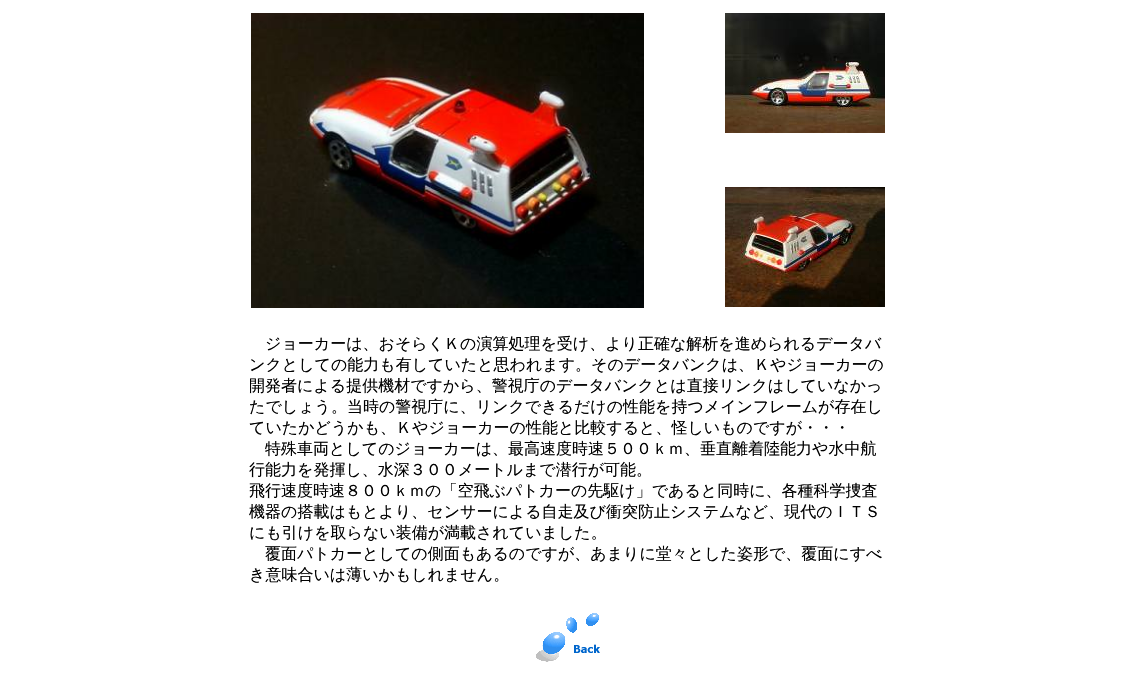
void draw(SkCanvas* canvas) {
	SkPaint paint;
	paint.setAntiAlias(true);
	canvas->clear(0xffffffff);
	canvas->drawImageRect(SkImages::DeferredFromEncodedData(SkData::MakeFromFileName("img1.png")), SkRect::MakeXYWH(251, 13, 393, 295), SkSamplingOptions());
	canvas->drawImageRect(SkImages::DeferredFromEncodedData(SkData::MakeFromFileName("img2.png")), SkRect::MakeXYWH(725, 13, 160, 120), SkSamplingOptions());
	canvas->drawImageRect(SkImages::DeferredFromEncodedData(SkData::MakeFromFileName("img3.png")), SkRect::MakeXYWH(725, 187, 160, 120), SkSamplingOptions());
	SkFont f1(fontMgr->matchFamilyStyle("WenQuanYi Zen Hei", SkFontStyle(500, SkFontStyle::kNormal_Width, SkFontStyle::kUpright_Slant)), 16);
	f1.setSubpixel(true);
	paint.setColor(0xff000000);
	canvas->drawString("ジョーカーは、おそらくＫの演算処理を受け、より正確な解析を進められるデータバ", 265, 349, f1, paint);
	canvas->drawString("ンクとしての能力も有していたと思われます。そのデータバンクは、Ｋやジョーカーの", 249, 370, f1, paint);
	canvas->drawString("開発者による提供機材ですから、警視庁のデータバンクとは直接リンクはしていなかっ", 249, 391, f1, paint);
	canvas->drawString("たでしょう。当時の警視庁に、リンクできるだけの性能を持つメインフレームが存在し", 249, 412, f1, paint);
	canvas->drawString("ていたかどうかも、Ｋやジョーカーの性能と比較すると、怪しいものですが・・・", 249, 433, f1, paint);
	canvas->drawString("特殊車両としてのジョーカーは、最高速度時速５００ｋｍ、垂直離着陸能力や水中航", 265, 454, f1, paint);
	canvas->drawString("行能力を発揮し、水深３００メートルまで潜行が可能。", 249, 475, f1, paint);
	canvas->drawString("飛行速度時速８００ｋｍの「空飛ぶパトカーの先駆け」であると同時に、各種科学捜査", 249, 496, f1, paint);
	canvas->drawString("機器の搭載はもとより、センサーによる自走及び衝突防止システムなど、現代のＩＴＳ", 249, 517, f1, paint);
	canvas->drawString("にも引けを取らない装備が満載されていました。", 249, 538, f1, paint);
	canvas->drawString("覆面パトカーとしての側面もあるのですが、あまりに堂々とした姿形で、覆面にすべ", 265, 559, f1, paint);
	canvas->drawString("き意味合いは薄いかもしれません。", 249, 580, f1, paint);
	canvas->drawImageRect(SkImages::DeferredFromEncodedData(SkData::MakeFromFileName("img4.png")), SkRect::MakeXYWH(536, 613, 64, 49), SkSamplingOptions());
}
